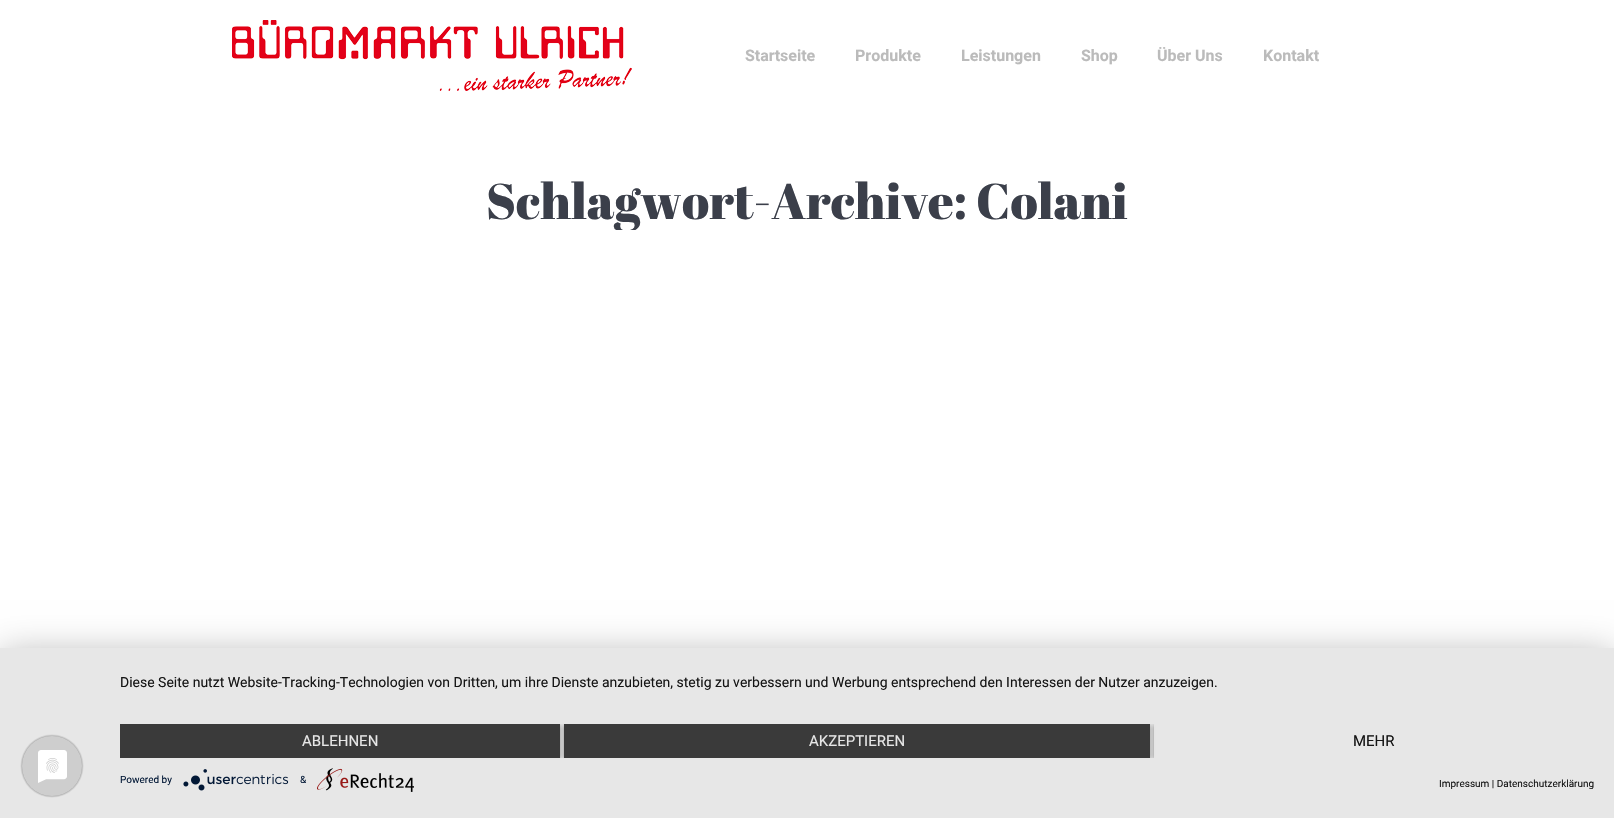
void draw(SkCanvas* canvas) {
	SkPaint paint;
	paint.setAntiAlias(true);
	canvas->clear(0xffffffff);
	canvas->drawImageRect(SkImages::DeferredFromEncodedData(SkData::MakeFromFileName("img1.png")), SkRect::MakeXYWH(232, 20, 400, 71), SkSamplingOptions());
	SkFont f1(fontMgr->matchFamilyStyle("Roboto", SkFontStyle::Bold()), 16);
	f1.setSubpixel(true);
	paint.setColor(0xffbbbbbb);
	canvas->drawString("Startseite", 745, 61, f1, paint);
	canvas->drawString("Produkte", 855, 61, f1, paint);
	canvas->drawString("Leistungen", 961, 61, f1, paint);
	canvas->drawString("Shop", 1081, 61, f1, paint);
	canvas->drawString("Über Uns", 1157, 61, f1, paint);
	canvas->drawString("Kontakt", 1263, 61, f1, paint);
	canvas->save();
	canvas->clipRect(SkRect::MakeXYWH(232, 171, 1150, 59));
	SkFont f2(fontMgr->matchFamilyStyle("Abril Fatface", SkFontStyle::Normal()), 50);
	f2.setSubpixel(true);
	paint.setColor(0xff3b3f4a);
	canvas->drawString("Schlagwort-Archive:", 486, 219, f2, paint);
	canvas->restore();
	canvas->drawString("Colani", 976, 219, f2, paint);
	paint.setColor(0x4d000000);
	paint.setMaskFilter(SkMaskFilter::MakeBlur(kNormal_SkBlurStyle, 18));
	canvas->drawRect(SkRect::MakeXYWH(0, 654, 1614, 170), paint);
	paint.setMaskFilter(nullptr);
	paint.setColor(0xffe7e7e7);
	canvas->drawRect(SkRect::MakeXYWH(0, 648, 1614, 170), paint);
	canvas->drawImageRect(SkImages::DeferredFromEncodedData(SkData::MakeFromFileName("img2.png")), SkRect::MakeXYWH(20, 734, 64, 64), SkSamplingOptions());
	SkFont f3(fontMgr->matchFamilyStyle("Roboto", SkFontStyle::Normal()), 14);
	f3.setSubpixel(true);
	paint.setColor(0xff161616);
	canvas->drawString("Diese Seite nutzt Website-Tracking-Technologien von Dritten, um ihre Dienste anzubieten, stetig zu verbessern und Werbung entsprechend den Interessen der Nutzer anzuzeigen.", 120, 687, f3, paint);
	canvas->save();
	canvas->clipRect(SkRect::MakeXYWH(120, 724, 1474, 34));
	paint.setColor(0x66000000);
	paint.setMaskFilter(SkMaskFilter::MakeBlur(kNormal_SkBlurStyle, 2));
	canvas->drawRect(SkRect::MakeXYWH(120, 725, 440, 34), paint);
	paint.setMaskFilter(nullptr);
	canvas->restore();
	paint.setColor(0xff3a3a3a);
	canvas->drawRect(SkRect::MakeXYWH(120, 724, 440, 34), paint);
	SkFont f4(fontMgr->matchFamilyStyle("Roboto", SkFontStyle::Normal()), 15);
	f4.setSubpixel(true);
	paint.setColor(0xffe7e7e7);
	canvas->drawString("ABLEHNEN", 302, 746, f4, paint);
	canvas->save();
	canvas->clipRect(SkRect::MakeXYWH(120, 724, 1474, 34));
	paint.setColor(0x66000000);
	paint.setMaskFilter(SkMaskFilter::MakeBlur(kNormal_SkBlurStyle, 2));
	canvas->drawRect(SkRect::MakeXYWH(564, 725, 586, 34), paint);
	paint.setMaskFilter(nullptr);
	canvas->restore();
	paint.setColor(0xff3a3a3a);
	canvas->drawRect(SkRect::MakeXYWH(564, 724, 586, 34), paint);
	paint.setColor(0xffe7e7e7);
	canvas->drawString("AKZEPTIEREN", 809, 746, f4, paint);
	canvas->save();
	canvas->clipRect(SkRect::MakeXYWH(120, 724, 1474, 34));
	canvas->clipRect(SkRect::MakeXYWH(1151, 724, 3, 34));
	paint.setColor(0x66000000);
	paint.setMaskFilter(SkMaskFilter::MakeBlur(kNormal_SkBlurStyle, 2));
	canvas->drawRect(SkRect::MakeXYWH(1154, 725, 440, 34), paint);
	paint.setMaskFilter(nullptr);
	canvas->restore();
	paint.setColor(0xff161616);
	canvas->drawString("MEHR", 1353, 746, f4, paint);
	SkFont f5(fontMgr->matchFamilyStyle("Roboto", SkFontStyle::Normal()), 10);
	f5.setSubpixel(true);
	paint.setColor(0xff021836);
	canvas->drawString("Powered by", 120, 783, f5, paint);
	canvas->drawImageRect(SkImages::DeferredFromEncodedData(SkData::MakeFromFileName("img3.png")), SkRect::MakeXYWH(183, 769, 106, 22), SkSamplingOptions());
	canvas->drawString("&", 300, 783, f5, paint);
	canvas->drawImageRect(SkImages::DeferredFromEncodedData(SkData::MakeFromFileName("img4.png")), SkRect::MakeXYWH(317, 768, 97, 24), SkSamplingOptions());
	paint.setColor(0xff161616);
	canvas->drawString("Impressum | Datenschutzerklärung", 1439, 787, f5, paint);
}
